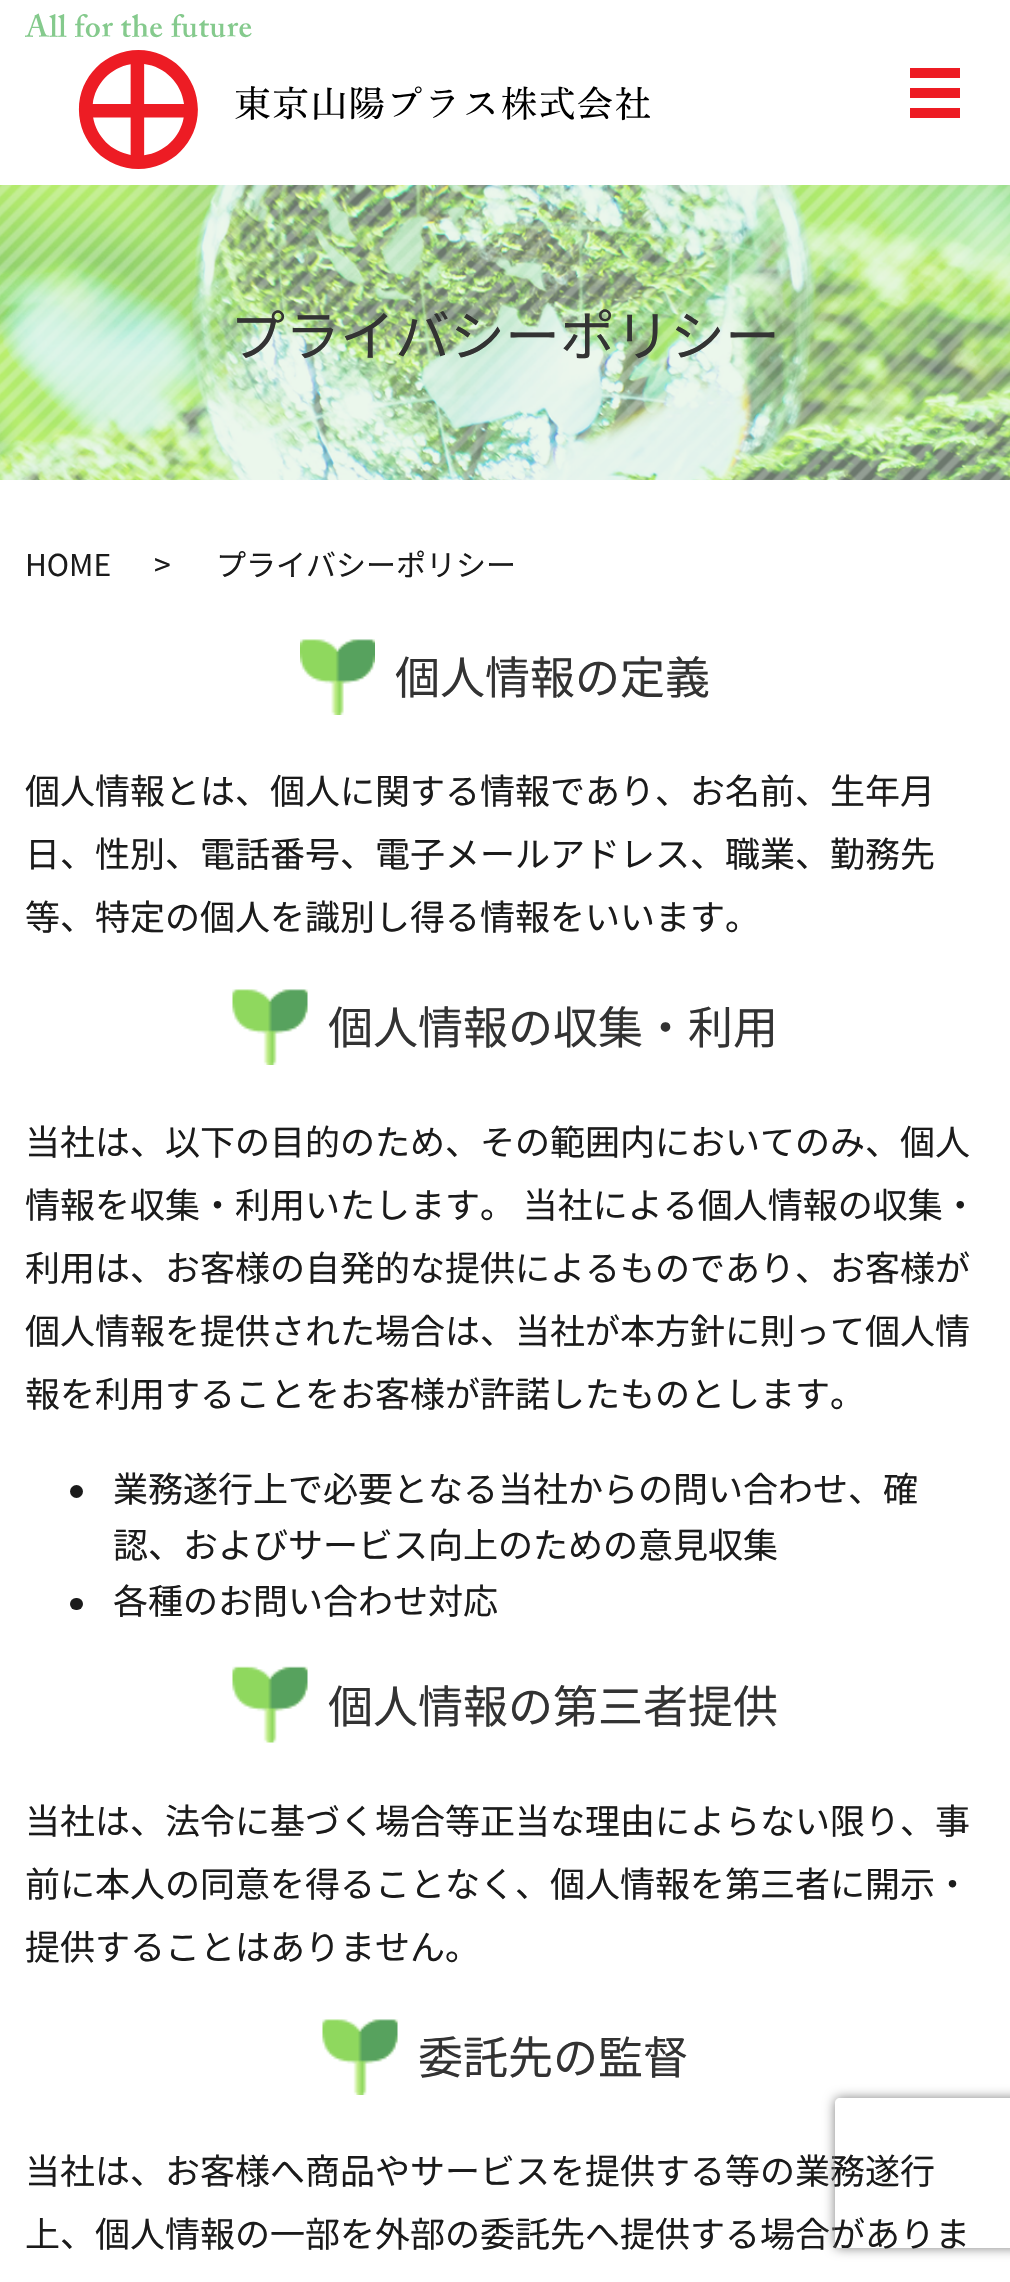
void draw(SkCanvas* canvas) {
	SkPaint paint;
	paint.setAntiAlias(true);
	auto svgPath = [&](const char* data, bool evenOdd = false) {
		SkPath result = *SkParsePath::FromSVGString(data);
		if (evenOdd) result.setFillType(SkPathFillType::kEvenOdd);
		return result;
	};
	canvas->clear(0xffffffff);
	canvas->drawImageRect(SkImages::DeferredFromEncodedData(SkData::MakeFromFileName("img1.png")), SkRect::MakeXYWH(25, 13, 625, 156), SkSamplingOptions());
	paint.setColor(0xffed1c24);
	canvas->drawRect(SkRect::MakeXYWH(910, 68, 50, 10), paint);
	canvas->drawRect(SkRect::MakeXYWH(910, 88, 50, 10), paint);
	canvas->drawRect(SkRect::MakeXYWH(910, 108, 50, 10), paint);
	canvas->drawImageRect(SkImages::DeferredFromEncodedData(SkData::MakeFromFileName("img2.png")), SkRect::MakeXYWH(0, 185, 1010, 295), SkSamplingOptions());
	SkFont f1(fontMgr->matchFamilyStyle("Noto Sans JP", SkFontStyle::Normal()), 55);
	f1.setSubpixel(true);
	paint.setColor(0xff333333);
	canvas->drawString("プライバシーポリシー", 230, 356, f1, paint);
	SkFont f2(fontMgr->matchFamilyStyle("Noto Sans JP", SkFontStyle::Normal()), 30);
	f2.setSubpixel(true);
	paint.setColor(0xff1b1b1b);
	canvas->drawString("HOME", 25, 576, f2, paint);
	canvas->drawString(">", 154, 576, f2, paint);
	canvas->drawString("プライバシーポリシー", 216, 576, f2, paint);
	canvas->drawImageRect(SkImages::DeferredFromEncodedData(SkData::MakeFromFileName("img3.png")), SkRect::MakeXYWH(300, 639, 75, 76), SkSamplingOptions());
	SkFont f3(fontMgr->matchFamilyStyle("Noto Sans JP", SkFontStyle::Normal()), 45);
	f3.setSubpixel(true);
	paint.setColor(0xff333333);
	canvas->drawString("個人情報の定義", 395, 694, f3, paint);
	SkFont f4(fontMgr->matchFamilyStyle("Noto Sans JP", SkFontStyle::Normal()), 35);
	f4.setSubpixel(true);
	paint.setColor(0xff1b1b1b);
	canvas->drawString("個人情報とは、個人に関する情報であり、お名前、生年月", 25, 804, f4, paint);
	canvas->drawString("日、性別、電話番号、電子メールアドレス、職業、勤務先", 25, 867, f4, paint);
	canvas->drawString("等、特定の個人を識別し得る情報をいいます。", 25, 930, f4, paint);
	canvas->drawImageRect(SkImages::DeferredFromEncodedData(SkData::MakeFromFileName("img4.png")), SkRect::MakeXYWH(232, 989, 76, 76), SkSamplingOptions());
	paint.setColor(0xff333333);
	canvas->drawString("個人情報の収集・利用", 328, 1044, f3, paint);
	paint.setColor(0xff1b1b1b);
	canvas->drawString("当社は、以下の目的のため、その範囲内においてのみ、個人", 25, 1155, f4, paint);
	canvas->drawString("情報を収集・利用いたします。 当社による個人情報の収集・", 25, 1218, f4, paint);
	canvas->drawString("利用は、お客様の自発的な提供によるものであり、お客様が", 25, 1281, f4, paint);
	canvas->drawString("個人情報を提供された場合は、当社が本方針に則って個人情", 25, 1344, f4, paint);
	canvas->drawString("報を利用することをお客様が許諾したものとします。", 25, 1407, f4, paint);
	canvas->drawCircle(76.5, 1491.5, 6.5, paint);
	canvas->drawString("業務遂行上で必要となる当社からの問い合わせ、確", 113, 1502, f4, paint);
	canvas->drawString("認、およびサービス向上のための意見収集", 113, 1558, f4, paint);
	canvas->drawRoundRect(SkRect::MakeXYWH(70, 1598, 13, 12), 6, 6, paint);
	canvas->drawString("各種のお問い合わせ対応", 113, 1614, f4, paint);
	canvas->drawImageRect(SkImages::DeferredFromEncodedData(SkData::MakeFromFileName("img5.png")), SkRect::MakeXYWH(232, 1666, 76, 77), SkSamplingOptions());
	paint.setColor(0xff333333);
	canvas->drawString("個人情報の第三者提供", 328, 1723, f3, paint);
	paint.setColor(0xff1b1b1b);
	canvas->drawString("当社は、法令に基づく場合等正当な理由によらない限り、事", 25, 1834, f4, paint);
	canvas->drawString("前に本人の同意を得ることなく、個人情報を第三者に開示・", 25, 1897, f4, paint);
	canvas->drawString("提供することはありません。", 25, 1960, f4, paint);
	canvas->drawImageRect(SkImages::DeferredFromEncodedData(SkData::MakeFromFileName("img4.png")), SkRect::MakeXYWH(322, 2019, 76, 76), SkSamplingOptions());
	paint.setColor(0xff333333);
	canvas->drawString("委託先の監督", 418, 2074, f3, paint);
	paint.setColor(0xff1b1b1b);
	canvas->drawString("当社は、お客様へ商品やサービスを提供する等の業務遂行", 25, 2184, f4, paint);
	canvas->drawString("上、個人情報の一部を外部の委託先へ提供する場合がありま", 25, 2247, f4, paint);
	canvas->save();
	canvas->clipPath(svgPath("M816 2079H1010V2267H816ZM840 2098H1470C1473 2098 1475 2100 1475 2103V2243C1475 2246 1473 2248 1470 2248H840C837 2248 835 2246 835 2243V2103C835 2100 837 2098 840 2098Z", true), true);
	paint.setColor(0xff808080);
	paint.setMaskFilter(SkMaskFilter::MakeBlur(kNormal_SkBlurStyle, 6));
	canvas->drawRoundRect(SkRect::MakeXYWH(835, 2098, 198, 150), 5, 5, paint);
	paint.setMaskFilter(nullptr);
	canvas->restore();
}
